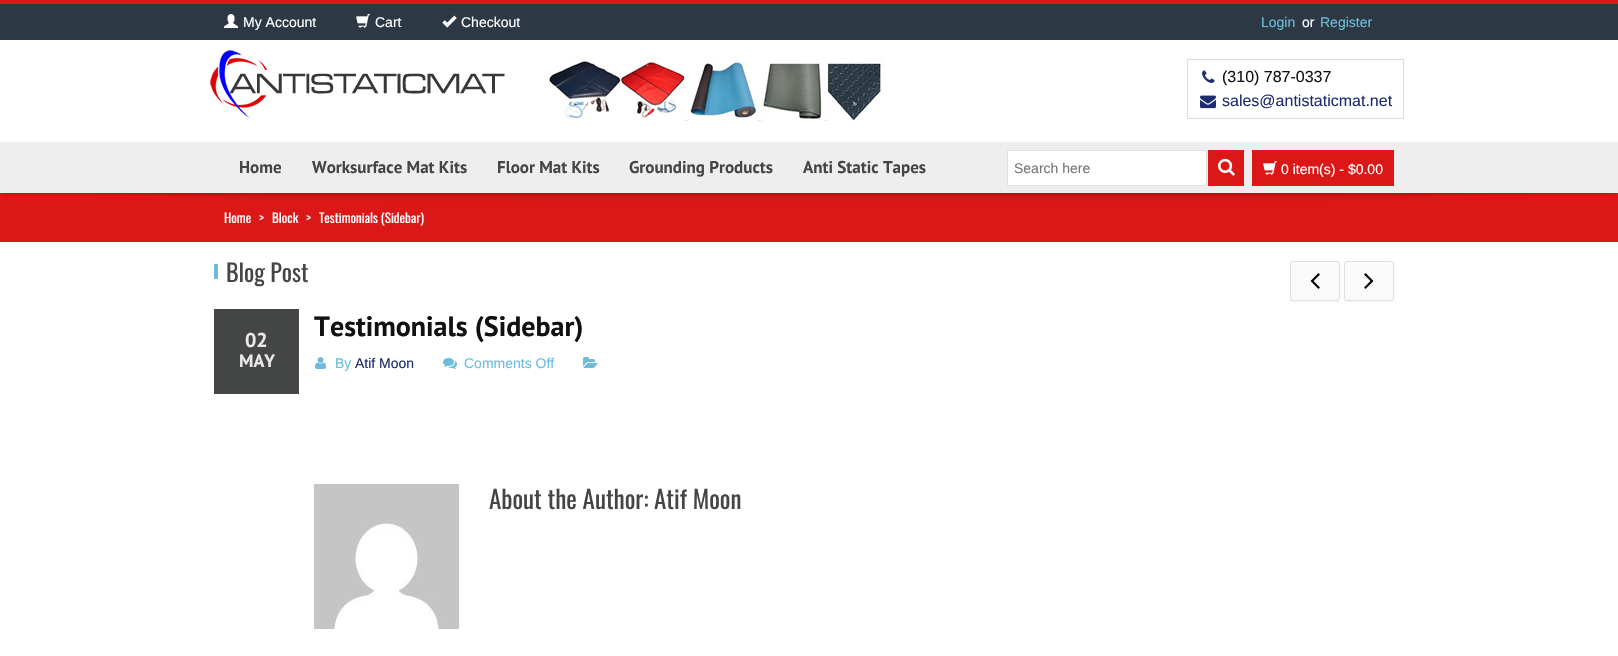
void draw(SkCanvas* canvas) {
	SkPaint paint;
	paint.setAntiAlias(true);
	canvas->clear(0xffffffff);
	paint.setColor(0xffdc1717);
	canvas->drawRect(SkRect::MakeXYWH(0, 193, 1618, 49), paint);
	canvas->save();
	canvas->clipRect(SkRect::MakeXYWH(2, 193, 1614, 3));
	paint.setColor(0x1a000000);
	paint.setMaskFilter(SkMaskFilter::MakeBlur(kNormal_SkBlurStyle, 1.5));
	canvas->drawRect(SkRect::MakeXYWH(3, 8, 1612, 187), paint);
	paint.setMaskFilter(nullptr);
	canvas->restore();
	paint.setColor(0xff2d3845);
	canvas->drawRect(SkRect::MakeXYWH(0, 4, 1618, 36), paint);
	paint.setColor(0xffdc1717);
	canvas->drawRect(SkRect::MakeXYWH(0, 0, 1618, 4), paint);
	canvas->drawImageRect(SkImages::DeferredFromEncodedData(SkData::MakeFromFileName("img1.png")), SkRect::MakeXYWH(224, 14, 14, 14), SkSamplingOptions());
	SkFont f1(fontMgr->matchFamilyStyle("Liberation Sans", SkFontStyle::Normal()), 14);
	f1.setSubpixel(true);
	paint.setColor(0xffffffff);
	canvas->drawString("My Account", 243, 27, f1, paint);
	canvas->drawImageRect(SkImages::DeferredFromEncodedData(SkData::MakeFromFileName("img2.png")), SkRect::MakeXYWH(356, 14, 14, 14), SkSamplingOptions());
	canvas->drawString("Cart", 375, 27, f1, paint);
	canvas->drawImageRect(SkImages::DeferredFromEncodedData(SkData::MakeFromFileName("img3.png")), SkRect::MakeXYWH(442, 15, 15, 13), SkSamplingOptions());
	canvas->drawString("Checkout", 461, 27, f1, paint);
	paint.setColor(0xff6dbcdb);
	canvas->drawString("Login", 1261, 27, f1, paint);
	paint.setColor(0xffffffff);
	canvas->drawString("or", 1302, 27, f1, paint);
	paint.setColor(0xff6dbcdb);
	canvas->drawString("Register", 1320, 27, f1, paint);
	canvas->drawImageRect(SkImages::DeferredFromEncodedData(SkData::MakeFromFileName("img4.png")), SkRect::MakeXYWH(210, 50, 295, 69), SkSamplingOptions());
	canvas->drawImageRect(SkImages::DeferredFromEncodedData(SkData::MakeFromFileName("img5.png")), SkRect::MakeXYWH(544, 57, 340, 64), SkSamplingOptions());
	paint.setStroke(true);
	paint.setStrokeWidth(1);
	paint.setColor(0xffdcdcdc);
	canvas->drawRect(SkRect::MakeXYWH(1187.5, 59.5, 216, 59), paint);
	canvas->drawImageRect(SkImages::DeferredFromEncodedData(SkData::MakeFromFileName("img6.png")), SkRect::MakeXYWH(1202, 70, 13, 13), SkSamplingOptions());
	SkFont f2(fontMgr->matchFamilyStyle("Liberation Sans", SkFontStyle::Normal()), 16);
	f2.setSubpixel(true);
	paint.setStroke(false);
	paint.setColor(0xff111111);
	canvas->drawString("(310) 787-0337", 1222, 82, f2, paint);
	canvas->drawImageRect(SkImages::DeferredFromEncodedData(SkData::MakeFromFileName("img7.png")), SkRect::MakeXYWH(1200, 95, 16, 14), SkSamplingOptions());
	paint.setColor(0xff1e2d70);
	canvas->drawString("sales@antistaticmat.net", 1222, 106, f2, paint);
	paint.setColor(0xffeeeeee);
	canvas->drawRect(SkRect::MakeXYWH(0, 142, 1618, 51), paint);
	SkFont f3(fontMgr->matchFamilyStyle("PT Sans", SkFontStyle::Bold()), 17);
	f3.setSubpixel(true);
	paint.setColor(0xff444645);
	canvas->drawString("Home", 239, 173, f3, paint);
	canvas->drawString("Worksurface Mat Kits", 312, 173, f3, paint);
	canvas->drawString("Floor Mat Kits", 497, 173, f3, paint);
	canvas->drawString("Grounding Products", 629, 173, f3, paint);
	canvas->drawString("Anti Static Tapes", 803, 173, f3, paint);
	paint.setColor(0xffffffff);
	canvas->drawRect(SkRect::MakeXYWH(1007.5, 150.5, 199, 35), paint);
	paint.setStroke(true);
	paint.setColor(0xffe0e0e0);
	canvas->drawRect(SkRect::MakeXYWH(1007.5, 150.5, 199, 35), paint);
	paint.setStroke(false);
	paint.setColor(0xff757575);
	canvas->drawString("Search here", 1014, 173, f1, paint);
	paint.setColor(0xffdc1717);
	canvas->drawRect(SkRect::MakeXYWH(1208, 150, 36, 36), paint);
	canvas->drawImageRect(SkImages::DeferredFromEncodedData(SkData::MakeFromFileName("img8.png")), SkRect::MakeXYWH(1218, 158, 17, 18), SkSamplingOptions());
	canvas->drawRect(SkRect::MakeXYWH(1252, 150, 142, 36), paint);
	canvas->drawImageRect(SkImages::DeferredFromEncodedData(SkData::MakeFromFileName("img9.png")), SkRect::MakeXYWH(1263, 161, 14, 14), SkSamplingOptions());
	paint.setColor(0xffffffff);
	canvas->drawString("0 item(s) - $0.00", 1281, 174, f1, paint);
	canvas->drawImageRect(SkImages::DeferredFromEncodedData(SkData::MakeFromFileName("img10.png")), SkRect::MakeXYWH(93, 193, 1435, 9), SkSamplingOptions());
	SkFont f4(fontMgr->matchFamilyStyle("Oswald", SkFontStyle::Normal()), 13);
	f4.setSubpixel(true);
	canvas->drawString("Home", 224, 223, f4, paint);
	canvas->drawString(">", 259, 223, f4, paint);
	canvas->drawString("Block", 272, 223, f4, paint);
	canvas->drawString(">", 306, 223, f4, paint);
	canvas->drawString("Testimonials (Sidebar)", 319, 223, f4, paint);
	paint.setColor(0xff6dbcdb);
	canvas->drawRect(SkRect::MakeXYWH(214, 264, 4, 15), paint);
	SkFont f5(fontMgr->matchFamilyStyle("Oswald", SkFontStyle::Normal()), 24);
	f5.setSubpixel(true);
	paint.setColor(0xff444645);
	canvas->drawString("Blog Post", 226, 282, f5, paint);
	paint.setColor(0x0d000000);
	paint.setMaskFilter(SkMaskFilter::MakeBlur(kNormal_SkBlurStyle, 1));
	canvas->drawRoundRect(SkRect::MakeXYWH(1290, 262, 50, 40), 3, 3, paint);
	paint.setMaskFilter(nullptr);
	paint.setColor(0xfffafafa);
	canvas->drawRoundRect(SkRect::MakeXYWH(1290.5, 261.5, 49, 39), 2.5, 2.5, paint);
	paint.setStroke(true);
	paint.setColor(0xffe0e0e0);
	canvas->drawRoundRect(SkRect::MakeXYWH(1290.5, 261.5, 49, 39), 2.5, 2.5, paint);
	canvas->drawImageRect(SkImages::DeferredFromEncodedData(SkData::MakeFromFileName("img11.png")), SkRect::MakeXYWH(1310, 273, 10, 16), SkSamplingOptions());
	paint.setStroke(false);
	paint.setColor(0x0d000000);
	paint.setMaskFilter(SkMaskFilter::MakeBlur(kNormal_SkBlurStyle, 1));
	canvas->drawRoundRect(SkRect::MakeXYWH(1344, 262, 50, 40), 3, 3, paint);
	paint.setMaskFilter(nullptr);
	paint.setColor(0xfffafafa);
	canvas->drawRoundRect(SkRect::MakeXYWH(1344.5, 261.5, 49, 39), 2.5, 2.5, paint);
	paint.setStroke(true);
	paint.setColor(0xffe0e0e0);
	canvas->drawRoundRect(SkRect::MakeXYWH(1344.5, 261.5, 49, 39), 2.5, 2.5, paint);
	canvas->drawImageRect(SkImages::DeferredFromEncodedData(SkData::MakeFromFileName("img12.png")), SkRect::MakeXYWH(1364, 273, 10, 16), SkSamplingOptions());
	paint.setStroke(false);
	paint.setColor(0xff444645);
	canvas->drawRect(SkRect::MakeXYWH(214, 309, 85, 85), paint);
	SkFont f6(fontMgr->matchFamilyStyle("PT Sans", SkFontStyle::Bold()), 20);
	f6.setSubpixel(true);
	paint.setColor(0xffe8e8e8);
	canvas->drawString("02", 245, 347, f6, paint);
	SkFont f7(fontMgr->matchFamilyStyle("PT Sans", SkFontStyle::Bold()), 18);
	f7.setSubpixel(true);
	canvas->drawString("MAY", 239, 367, f7, paint);
	SkFont f8(fontMgr->matchFamilyStyle("PT Sans", SkFontStyle::Bold()), 28);
	f8.setSubpixel(true);
	paint.setColor(0xff111111);
	canvas->drawString("Testimonials (Sidebar)", 314, 336, f8, paint);
	canvas->drawImageRect(SkImages::DeferredFromEncodedData(SkData::MakeFromFileName("img13.png")), SkRect::MakeXYWH(315, 357, 11, 12), SkSamplingOptions());
	paint.setColor(0xff6dbcdb);
	canvas->drawString("By", 335, 368, f1, paint);
	paint.setColor(0xff1e2d70);
	canvas->drawString("Atif Moon", 355, 368, f1, paint);
	canvas->drawImageRect(SkImages::DeferredFromEncodedData(SkData::MakeFromFileName("img14.png")), SkRect::MakeXYWH(443, 358, 14, 11), SkSamplingOptions());
	paint.setColor(0xff6dbcdb);
	canvas->drawString("Comments Off", 464, 368, f1, paint);
	canvas->drawImageRect(SkImages::DeferredFromEncodedData(SkData::MakeFromFileName("img15.png")), SkRect::MakeXYWH(583, 357, 15, 11), SkSamplingOptions());
	canvas->drawImageRect(SkImages::DeferredFromEncodedData(SkData::MakeFromFileName("img16.png")), SkRect::MakeXYWH(314, 484, 145, 145), SkSamplingOptions());
	SkFont f9(fontMgr->matchFamilyStyle("Oswald", SkFontStyle::Normal()), 25);
	f9.setSubpixel(true);
	paint.setColor(0xff444645);
	canvas->drawString("About the Author: Atif Moon", 489, 509, f9, paint);
}
